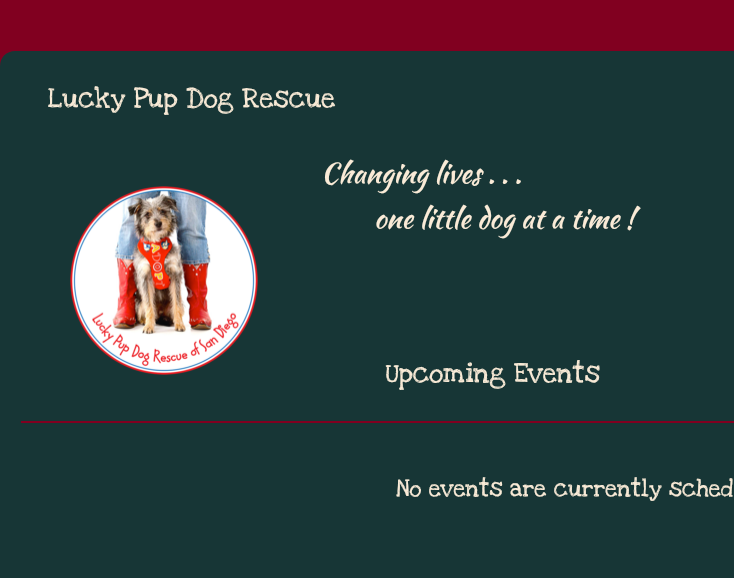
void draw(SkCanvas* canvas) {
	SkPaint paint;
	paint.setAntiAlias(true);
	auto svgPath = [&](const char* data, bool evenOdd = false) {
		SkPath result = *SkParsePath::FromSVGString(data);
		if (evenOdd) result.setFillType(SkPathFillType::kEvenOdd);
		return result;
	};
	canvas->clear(0xff810020);
	paint.setColor(0xff173636);
	canvas->drawPath(svgPath("M15 51H734V578H0V66C0 57.5 6.5 51 15 51Z"), paint);
	SkFont f1(fontMgr->matchFamilyStyle("Love Ya Like A Sister", SkFontStyle::Normal()), 28);
	f1.setSubpixel(true);
	paint.setColor(0xfffaebd7);
	canvas->drawString("Lucky Pup Dog Rescue", 48, 107, f1, paint);
	canvas->drawImageRect(SkImages::DeferredFromEncodedData(SkData::MakeFromFileName("img1.png")), SkRect::MakeXYWH(70, 186, 188, 189), SkSamplingOptions());
	SkFont f2(fontMgr->matchFamilyStyle("Kaushan Script", SkFontStyle::Normal()), 28);
	f2.setSubpixel(true);
	canvas->drawString("Changing lives . . .", 321, 183, f2, paint);
	canvas->drawString("one little dog at a time !", 374, 228, f2, paint);
	canvas->drawString("Upcoming Events", 386, 382, f1, paint);
	paint.setColor(0xff810020);
	canvas->drawRect(SkRect::MakeXYWH(21, 421, 713, 2), paint);
	SkFont f3(fontMgr->matchFamilyStyle("Love Ya Like A Sister", SkFontStyle::Normal()), 24);
	f3.setSubpixel(true);
	paint.setColor(0xfffaebd7);
	canvas->drawString("No events are currently sched", 396, 496, f3, paint);
}
